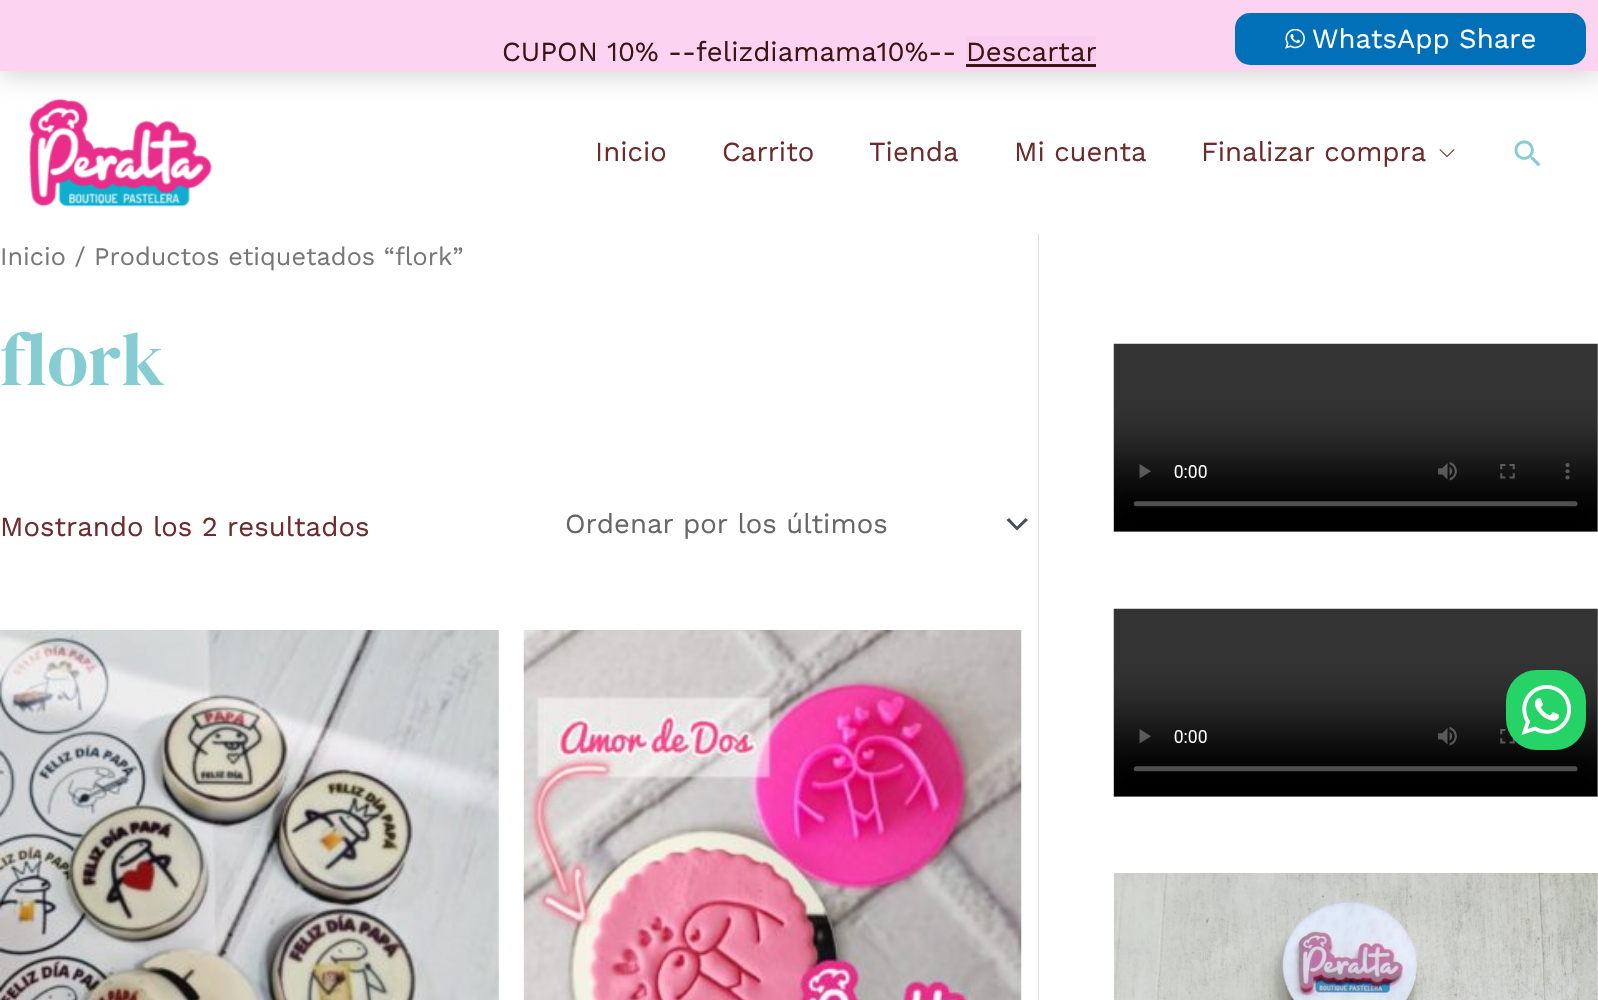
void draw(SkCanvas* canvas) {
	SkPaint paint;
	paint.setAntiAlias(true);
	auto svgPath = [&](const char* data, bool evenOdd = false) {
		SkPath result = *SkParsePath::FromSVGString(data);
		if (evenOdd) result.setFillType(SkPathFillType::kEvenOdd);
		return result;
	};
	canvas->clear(0xffffffff);
	canvas->drawImageRect(SkImages::DeferredFromEncodedData(SkData::MakeFromFileName("img2.png")), SkRect::MakeXYWH(29, 98, 184, 109), SkSamplingOptions());
	paint.setColor(0x33000000);
	paint.setMaskFilter(SkMaskFilter::MakeBlur(kNormal_SkBlurStyle, 14));
	canvas->drawRect(SkRect::MakeXYWH(0, 1, 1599, 72), paint);
	paint.setMaskFilter(nullptr);
	paint.setColor(0xfffcd4f1);
	canvas->drawRect(SkRect::MakeXYWH(0, 0, 1598, 71), paint);
	SkFont f1(fontMgr->matchFamilyStyle("Work Sans", SkFontStyle::Normal()), 27.5);
	f1.setSubpixel(true);
	paint.setColor(0xff3d1414);
	canvas->drawString("CUPON 10% --felizdiamama10%--", 502, 61, f1, paint);
	paint.setColor(0xfffbcdef);
	canvas->drawRect(SkRect::MakeXYWH(966, 36, 130, 32), paint);
	paint.setColor(0xff3d1414);
	canvas->drawString("Descartar", 966, 61, f1, paint);
	canvas->drawRect(SkRect::MakeXYWH(966, 64, 130, 3), paint);
	paint.setColor(0xff0170b9);
	canvas->drawRoundRect(SkRect::MakeXYWH(1235, 13, 351, 52), 15, 15, paint);
	canvas->drawImageRect(SkImages::DeferredFromEncodedData(SkData::MakeFromFileName("img1.png")), SkRect::MakeXYWH(1285, 29, 20, 20), SkSamplingOptions());
	paint.setColor(0xffffffff);
	canvas->drawString("WhatsApp Share", 1312, 48, f1, paint);
	paint.setColor(0xff6d2b2c);
	canvas->drawString("Inicio", 595, 161, f1, paint);
	canvas->drawString("Carrito", 722, 161, f1, paint);
	canvas->drawString("Tienda", 869, 161, f1, paint);
	canvas->drawString("Mi cuenta", 1014, 161, f1, paint);
	canvas->drawString("Finalizar compra", 1201, 161, f1, paint);
	canvas->drawImageRect(SkImages::DeferredFromEncodedData(SkData::MakeFromFileName("img3.png")), SkRect::MakeXYWH(1439, 149, 16, 8), SkSamplingOptions());
	canvas->drawImageRect(SkImages::DeferredFromEncodedData(SkData::MakeFromFileName("img4.png")), SkRect::MakeXYWH(1514, 140, 27, 27), SkSamplingOptions());
	paint.setColor(0xffdddddd);
	canvas->drawRect(SkRect::MakeXYWH(1038, 234, 1, 766), paint);
	SkFont f2(fontMgr->matchFamilyStyle("Work Sans", SkFontStyle::Normal()), 25.25);
	f2.setSubpixel(true);
	paint.setColor(0xff777777);
	canvas->drawString("Inicio / Productos etiquetados “flork”", 0, 265, f2, paint);
	SkFont f3(fontMgr->matchFamilyStyle("DM Serif Display", SkFontStyle::Normal()), 75);
	f3.setSubpixel(true);
	paint.setColor(0xff85cdd2);
	canvas->drawString("flork", 0, 385, f3, paint);
	paint.setColor(0xff6d2b2c);
	canvas->drawString("Mostrando los 2 resultados", 0, 536, f1, paint);
	paint.setColor(0xff4b4f58);
	canvas->drawPath(svgPath("M1006.5 520L1017 530.5L1028 520L1025.5 518L1017 526.5L1009 518Z"), paint);
	paint.setColor(0xff666666);
	canvas->drawString("Ordenar por los últimos", 565, 533, f1, paint);
	canvas->drawImageRect(SkImages::DeferredFromEncodedData(SkData::MakeFromFileName("img5.png")), SkRect::MakeXYWH(0, 630, 499, 370), SkSamplingOptions());
	canvas->drawImageRect(SkImages::DeferredFromEncodedData(SkData::MakeFromFileName("img6.png")), SkRect::MakeXYWH(523, 630, 499, 370), SkSamplingOptions());
	canvas->drawImageRect(SkImages::DeferredFromEncodedData(SkData::MakeFromFileName("img7.png")), SkRect::MakeXYWH(1113, 343, 485, 189), SkSamplingOptions());
	canvas->drawImageRect(SkImages::DeferredFromEncodedData(SkData::MakeFromFileName("img7.png")), SkRect::MakeXYWH(1113, 608, 485, 189), SkSamplingOptions());
	canvas->drawImageRect(SkImages::DeferredFromEncodedData(SkData::MakeFromFileName("img8.png")), SkRect::MakeXYWH(1114, 873, 484, 127), SkSamplingOptions());
	paint.setColor(0xff25d366);
	canvas->drawRoundRect(SkRect::MakeXYWH(1506, 670, 80, 80), 31, 31, paint);
	canvas->drawImageRect(SkImages::DeferredFromEncodedData(SkData::MakeFromFileName("img9.png")), SkRect::MakeXYWH(1521, 685, 50, 50), SkSamplingOptions());
}
